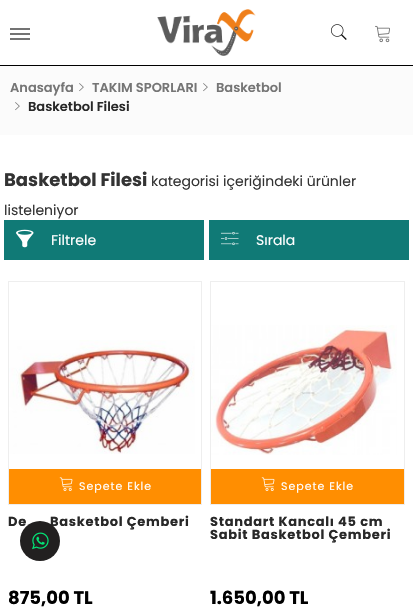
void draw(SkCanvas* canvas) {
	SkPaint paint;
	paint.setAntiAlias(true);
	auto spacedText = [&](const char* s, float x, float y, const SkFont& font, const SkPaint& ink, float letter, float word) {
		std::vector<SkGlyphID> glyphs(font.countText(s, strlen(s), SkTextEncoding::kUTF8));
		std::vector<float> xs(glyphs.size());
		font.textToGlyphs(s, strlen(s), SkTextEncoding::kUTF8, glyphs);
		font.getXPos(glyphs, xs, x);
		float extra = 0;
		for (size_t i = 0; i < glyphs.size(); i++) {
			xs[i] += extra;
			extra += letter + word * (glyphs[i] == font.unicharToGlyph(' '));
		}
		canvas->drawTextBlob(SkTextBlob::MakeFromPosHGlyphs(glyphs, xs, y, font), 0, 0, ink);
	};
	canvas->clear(0xffffffff);
	paint.setColor(0xff000000);
	canvas->drawRect(SkRect::MakeXYWH(0, 65, 413, 1), paint);
	paint.setColor(0xff737373);
	canvas->drawRect(SkRect::MakeXYWH(10, 28, 20, 2), paint);
	canvas->drawRect(SkRect::MakeXYWH(10, 33, 20, 2), paint);
	canvas->drawRect(SkRect::MakeXYWH(10, 38, 20, 2), paint);
	canvas->drawImageRect(SkImages::DeferredFromEncodedData(SkData::MakeFromFileName("img1.png")), SkRect::MakeXYWH(157, 9, 99, 47), SkSamplingOptions());
	canvas->drawImageRect(SkImages::DeferredFromEncodedData(SkData::MakeFromFileName("img2.png")), SkRect::MakeXYWH(331, 24, 16, 16), SkSamplingOptions());
	canvas->drawImageRect(SkImages::DeferredFromEncodedData(SkData::MakeFromFileName("img3.png")), SkRect::MakeXYWH(375, 25, 15, 18), SkSamplingOptions());
	paint.setColor(0xfffbfbfb);
	canvas->drawRect(SkRect::MakeXYWH(0, 66, 413, 69), paint);
	SkFont f1(fontMgr->matchFamilyStyle("Poppins", SkFontStyle(600, SkFontStyle::kNormal_Width, SkFontStyle::kUpright_Slant)), 13);
	f1.setSubpixel(true);
	paint.setColor(0xff757575);
	canvas->drawString("Anasayfa", 10, 92, f1, paint);
	canvas->drawImageRect(SkImages::DeferredFromEncodedData(SkData::MakeFromFileName("img4.png")), SkRect::MakeXYWH(79, 83, 5, 9), SkSamplingOptions());
	canvas->drawString("TAKIM SPORLARI", 92, 92, f1, paint);
	canvas->drawImageRect(SkImages::DeferredFromEncodedData(SkData::MakeFromFileName("img4.png")), SkRect::MakeXYWH(203, 83, 5, 9), SkSamplingOptions());
	canvas->drawString("Basketbol", 216, 92, f1, paint);
	canvas->drawImageRect(SkImages::DeferredFromEncodedData(SkData::MakeFromFileName("img4.png")), SkRect::MakeXYWH(15, 102, 5, 9), SkSamplingOptions());
	paint.setColor(0xff282828);
	canvas->drawString("Basketbol Filesi", 28, 111, f1, paint);
	SkFont f2(fontMgr->matchFamilyStyle("Poppins", SkFontStyle::Bold()), 18);
	f2.setSubpixel(true);
	paint.setColor(0xff333333);
	canvas->drawString("Basketbol Filesi", 4, 186, f2, paint);
	SkFont f3(fontMgr->matchFamilyStyle("Poppins", SkFontStyle::Normal()), 14);
	f3.setSubpixel(true);
	canvas->drawString("kategorisi içeriğindeki ürünler", 151, 186, f3, paint);
	canvas->drawString("listeleniyor", 4, 215, f3, paint);
	paint.setColor(0xff107a76);
	canvas->drawRect(SkRect::MakeXYWH(4, 220, 200, 40), paint);
	canvas->drawImageRect(SkImages::DeferredFromEncodedData(SkData::MakeFromFileName("img5.png")), SkRect::MakeXYWH(16, 229, 18, 19), SkSamplingOptions());
	paint.setColor(0xffffffff);
	canvas->drawString("Filtrele", 51, 245, f3, paint);
	paint.setColor(0xff107a76);
	canvas->drawRect(SkRect::MakeXYWH(209, 220, 200, 40), paint);
	canvas->drawImageRect(SkImages::DeferredFromEncodedData(SkData::MakeFromFileName("img6.png")), SkRect::MakeXYWH(221, 231, 18, 15), SkSamplingOptions());
	paint.setColor(0xffffffff);
	canvas->drawString("Sırala", 256, 245, f3, paint);
	paint.setStroke(true);
	paint.setStrokeWidth(1);
	paint.setColor(0xffeeeeee);
	canvas->drawRect(SkRect::MakeXYWH(8.5, 281.5, 193, 223), paint);
	canvas->drawImageRect(SkImages::DeferredFromEncodedData(SkData::MakeFromFileName("img7.png")), SkRect::MakeXYWH(9, 340, 186, 114), SkSamplingOptions());
	paint.setStroke(false);
	paint.setColor(0xffff8e01);
	canvas->drawRect(SkRect::MakeXYWH(9, 469, 192, 35), paint);
	canvas->drawImageRect(SkImages::DeferredFromEncodedData(SkData::MakeFromFileName("img8.png")), SkRect::MakeXYWH(59, 477, 14, 14), SkSamplingOptions());
	SkFont f4(fontMgr->matchFamilyStyle("Poppins", SkFontStyle::Normal()), 11);
	f4.setSubpixel(true);
	paint.setColor(0xffffffff);
	spacedText("Sepete Ekle", 79, 490, f4, paint, 1, 0);
	SkFont f5(fontMgr->matchFamilyStyle("Poppins", SkFontStyle::Bold()), 13);
	f5.setSubpixel(true);
	paint.setColor(0xff282828);
	spacedText("De", 8, 526, f5, paint, 0.7, 0);
	spacedText("Basketbol Çemberi", 50, 526, f5, paint, 0.7, 0);
	paint.setColor(0xff000000);
	canvas->drawString("875,00 TL", 8, 604, f2, paint);
	paint.setStroke(true);
	paint.setColor(0xffeeeeee);
	canvas->drawRect(SkRect::MakeXYWH(210.5, 281.5, 194, 223), paint);
	canvas->drawImageRect(SkImages::DeferredFromEncodedData(SkData::MakeFromFileName("img9.png")), SkRect::MakeXYWH(211, 325, 186, 130), SkSamplingOptions());
	paint.setStroke(false);
	paint.setColor(0xffff8e01);
	canvas->drawRect(SkRect::MakeXYWH(211, 469, 193, 35), paint);
	canvas->drawImageRect(SkImages::DeferredFromEncodedData(SkData::MakeFromFileName("img8.png")), SkRect::MakeXYWH(261, 477, 14, 14), SkSamplingOptions());
	paint.setColor(0xffffffff);
	spacedText("Sepete Ekle", 281, 490, f4, paint, 1, 0);
	paint.setColor(0xff282828);
	spacedText("Standart Kancalı 45 cm", 210, 526, f5, paint, 0.7, 0);
	spacedText("Sabit Basketbol Çemberi", 210, 539, f5, paint, 0.7, 0);
	paint.setColor(0xff000000);
	canvas->drawString("1.650,00 TL", 210, 604, f2, paint);
	paint.setColor(0xff222020);
	canvas->drawCircle(40, 541, 20, paint);
	canvas->drawImageRect(SkImages::DeferredFromEncodedData(SkData::MakeFromFileName("img10.png")), SkRect::MakeXYWH(32, 532, 17, 18), SkSamplingOptions());
}
